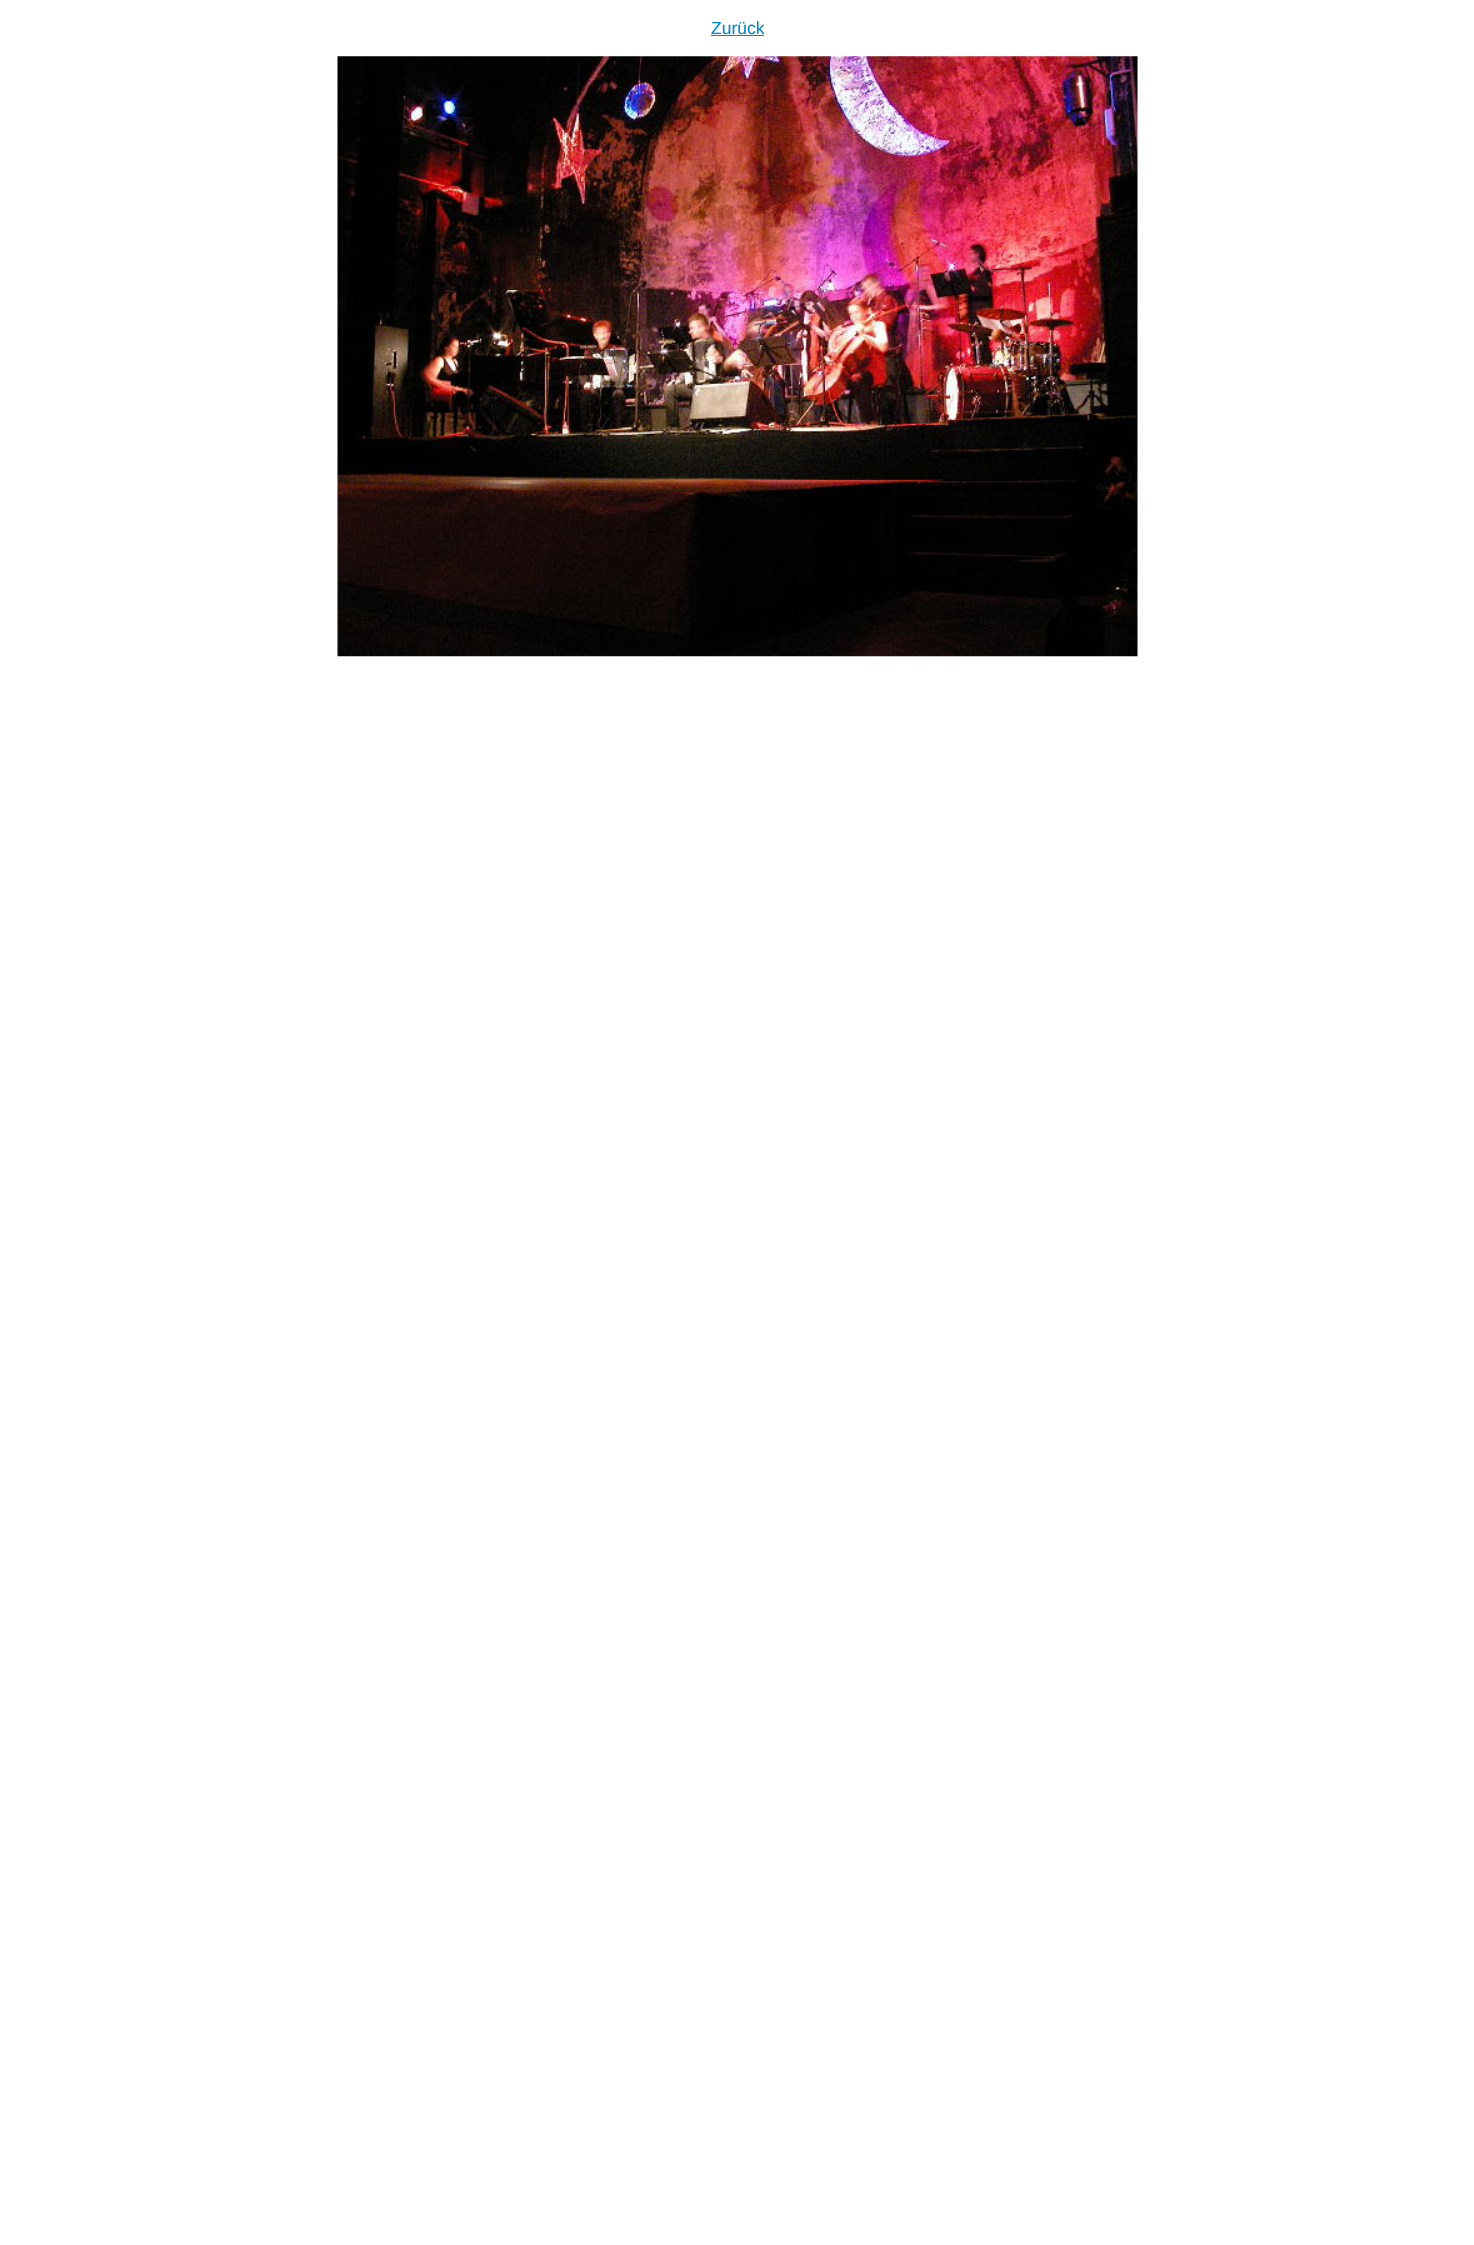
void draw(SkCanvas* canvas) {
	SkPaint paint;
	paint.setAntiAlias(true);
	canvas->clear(0xffffffff);
	SkFont f1(fontMgr->matchFamilyStyle("Liberation Sans", SkFontStyle::Normal()), 17.5);
	f1.setSubpixel(true);
	paint.setColor(0xff0088cc);
	canvas->drawString("Zurück", 711, 34, f1, paint);
	canvas->drawRect(SkRect::MakeXYWH(711, 35, 53, 1), paint);
	canvas->drawImageRect(SkImages::DeferredFromEncodedData(SkData::MakeFromFileName("img1.png")), SkRect::MakeXYWH(337, 56, 801, 601), SkSamplingOptions());
}
